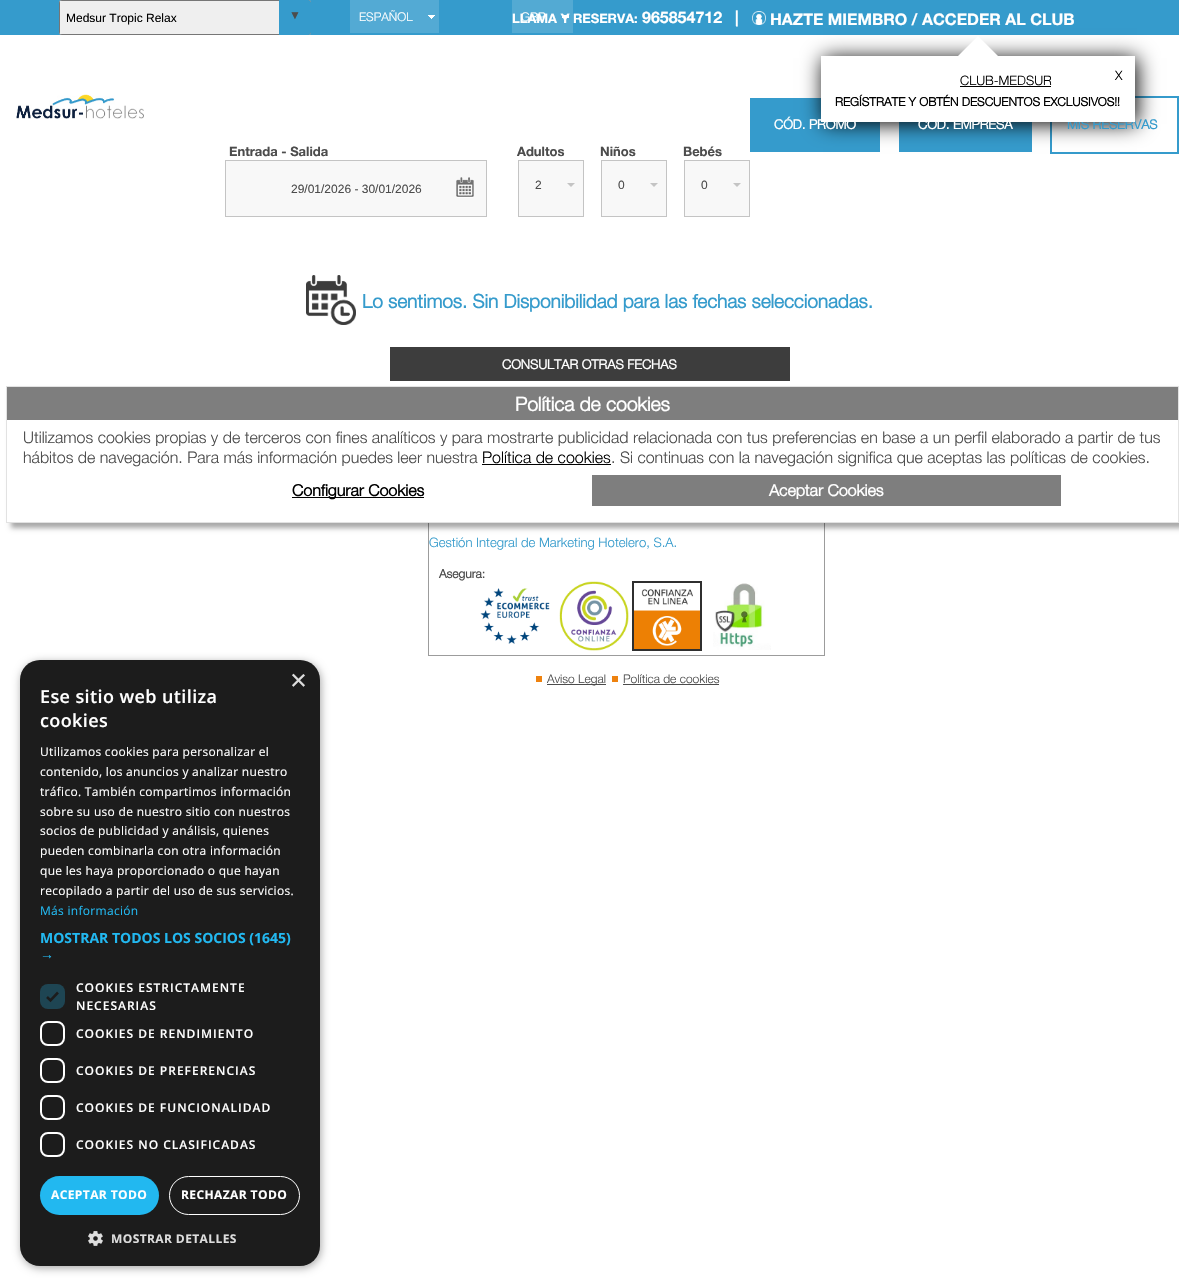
void draw(SkCanvas* canvas) {
	SkPaint paint;
	paint.setAntiAlias(true);
	auto spacedText = [&](const char* s, float x, float y, const SkFont& font, const SkPaint& ink, float letter, float word) {
		std::vector<SkGlyphID> glyphs(font.countText(s, strlen(s), SkTextEncoding::kUTF8));
		std::vector<float> xs(glyphs.size());
		font.textToGlyphs(s, strlen(s), SkTextEncoding::kUTF8, glyphs);
		font.getXPos(glyphs, xs, x);
		float extra = 0;
		for (size_t i = 0; i < glyphs.size(); i++) {
			xs[i] += extra;
			extra += letter + word * (glyphs[i] == font.unicharToGlyph(' '));
		}
		canvas->drawTextBlob(SkTextBlob::MakeFromPosHGlyphs(glyphs, xs, y, font), 0, 0, ink);
	};
	auto svgPath = [&](const char* data, bool evenOdd = false) {
		SkPath result = *SkParsePath::FromSVGString(data);
		if (evenOdd) result.setFillType(SkPathFillType::kEvenOdd);
		return result;
	};
	canvas->clear(0xffffffff);
	paint.setColor(0xff359bcc);
	canvas->drawRect(SkRect::MakeXYWH(0, 0, 1179, 35), paint);
	paint.setColor(0xffefefef);
	canvas->drawRoundRect(SkRect::MakeXYWH(59, 0, 252, 35), 3, 3, paint);
	paint.setColor(0xff767676);
	canvas->drawPath(svgPath("M62 0C60 0 59 1 59 3V32C59 34 60 35 62 35H308C310 35 311 34 311 32V3C311 1 310 0 308 0ZM60 1V34H310V1Z", true), paint);
	SkFont f1(fontMgr->matchFamilyStyle("Liberation Sans", SkFontStyle::Normal()), 12);
	f1.setSubpixel(true);
	paint.setColor(0xff000000);
	canvas->drawString("Medsur Tropic Relax", 66, 22, f1, paint);
	paint.setColor(0xff359bcc);
	canvas->drawPath(svgPath("M279 0H308C309.5 0 311 1.5 311 3V32C311 33.5 309.5 35 308 35H279Z"), paint);
	paint.setColor(0xff4c4c4c);
	canvas->drawString("▼", 289, 19, f1, paint);
	paint.setColor(0xff53aad4);
	canvas->drawRect(SkRect::MakeXYWH(350, 0, 89, 33), paint);
	SkFont f2(fontMgr->matchFamilyStyle("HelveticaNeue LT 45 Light", SkFontStyle(300, SkFontStyle::kNormal_Width, SkFontStyle::kUpright_Slant)), 12);
	f2.setSubpixel(true);
	paint.setColor(0xffffffff);
	canvas->drawString("ESPAÑOL", 359, 21, f2, paint);
	canvas->drawImageRect(SkImages::DeferredFromEncodedData(SkData::MakeFromFileName("img1.png")), SkRect::MakeXYWH(428, 15, 7, 4), SkSamplingOptions());
	SkFont f3(fontMgr->matchFamilyStyle("Helvetica Neue", SkFontStyle::Bold()), 13);
	f3.setSubpixel(true);
	canvas->drawString("LLAMA Y RESERVA:", 512, 23, f3, paint);
	SkFont f4(fontMgr->matchFamilyStyle("Helvetica Neue", SkFontStyle::Bold()), 16);
	f4.setSubpixel(true);
	canvas->drawString("965854712", 642, 23, f4, paint);
	canvas->drawString("|", 735, 23, f4, paint);
	canvas->drawImageRect(SkImages::DeferredFromEncodedData(SkData::MakeFromFileName("img2.png")), SkRect::MakeXYWH(752, 11, 14, 14), SkSamplingOptions());
	canvas->drawString("HAZTE MIEMBRO / ACCEDER AL CLUB", 770, 25, f4, paint);
	paint.setColor(0x26ffffff);
	canvas->drawRect(SkRect::MakeXYWH(512, 0, 61, 33), paint);
	paint.setColor(0xffffffff);
	canvas->drawString("GBP", 521, 21, f2, paint);
	canvas->drawRect(SkRect::MakeXYWH(562, 15, 7, 3), paint);
	canvas->drawImageRect(SkImages::DeferredFromEncodedData(SkData::MakeFromFileName("img3.png")), SkRect::MakeXYWH(16, 94, 128, 25), SkSamplingOptions());
	paint.setColor(0xff359bcc);
	canvas->drawRect(SkRect::MakeXYWH(750, 98, 130, 54), paint);
	canvas->drawRect(SkRect::MakeXYWH(899, 122, 133, 30), paint);
	paint.setStroke(true);
	paint.setStrokeWidth(2);
	canvas->drawRect(SkRect::MakeXYWH(1051, 97, 127, 56), paint);
	paint.setStroke(false);
	paint.setColor(0xff000000);
	paint.setMaskFilter(SkMaskFilter::MakeBlur(kNormal_SkBlurStyle, 10));
	canvas->drawRect(SkRect::MakeXYWH(823, 58, 314, 66), paint);
	paint.setMaskFilter(nullptr);
	SkFont f5(fontMgr->matchFamilyStyle("HelveticaNeue LT 45 Light", SkFontStyle::Bold()), 13);
	f5.setSubpixel(true);
	paint.setColor(0xff359bcc);
	canvas->drawString("MIS RESERVAS", 1067, 129, f5, paint);
	paint.setColor(0xffffffff);
	canvas->drawRect(SkRect::MakeXYWH(821, 56, 314, 66), paint);
	canvas->drawPath(svgPath("M998 56H958L978 36Z"), paint);
	SkFont f6(fontMgr->matchFamilyStyle("HelveticaNeue LT 45 Light", SkFontStyle(300, SkFontStyle::kNormal_Width, SkFontStyle::kUpright_Slant)), 13);
	f6.setSubpixel(true);
	paint.setColor(0xff000000);
	canvas->drawString("CLUB-MEDSUR", 960, 85, f6, paint);
	canvas->drawRect(SkRect::MakeXYWH(960, 86, 91, 1), paint);
	canvas->drawString("X", 1115, 80, f6, paint);
	SkFont f7(fontMgr->matchFamilyStyle("HelveticaNeue LT 45 Light", SkFontStyle::Bold()), 12);
	f7.setSubpixel(true);
	canvas->drawString("REGÍSTRATE Y OBTÉN DESCUENTOS EXCLUSIVOS!!", 835, 106, f7, paint);
	paint.setColor(0xffffffff);
	canvas->drawString("CÓD. PROMO", 774, 129, f5, paint);
	canvas->drawString("CÓD. EMPRESA", 918, 129, f5, paint);
	paint.setColor(0xff4c4c4c);
	canvas->drawString("Entrada - Salida", 229, 156, f3, paint);
	paint.setColor(0xfff8f8f8);
	canvas->drawRect(SkRect::MakeXYWH(225.5, 160.5, 261, 56), paint);
	paint.setStroke(true);
	paint.setStrokeWidth(1);
	paint.setColor(0xffc4c4c4);
	canvas->drawRect(SkRect::MakeXYWH(225.5, 160.5, 261, 56), paint);
	paint.setStroke(false);
	paint.setColor(0xff4c4c4c);
	canvas->drawString("29/01/2026 - 30/01/2026", 291, 193, f1, paint);
	canvas->drawImageRect(SkImages::DeferredFromEncodedData(SkData::MakeFromFileName("img4.png")), SkRect::MakeXYWH(456, 177, 18, 21), SkSamplingOptions());
	canvas->drawString("Adultos", 517, 156, f3, paint);
	paint.setColor(0xfff8f8f8);
	canvas->drawRect(SkRect::MakeXYWH(518.5, 160.5, 65, 56), paint);
	paint.setStroke(true);
	paint.setColor(0xffc4c4c4);
	canvas->drawRect(SkRect::MakeXYWH(518.5, 160.5, 65, 56), paint);
	paint.setStroke(false);
	paint.setColor(0xff4c4c4c);
	canvas->drawString("2", 535, 189, f1, paint);
	paint.setColor(0xffc4c4c4);
	canvas->drawPath(svgPath("M567 183H575L571 187Z"), paint);
	paint.setColor(0xff4c4c4c);
	canvas->drawString("Niños", 600, 156, f3, paint);
	paint.setColor(0xfff8f8f8);
	canvas->drawRect(SkRect::MakeXYWH(601.5, 160.5, 65, 56), paint);
	paint.setStroke(true);
	paint.setColor(0xffc4c4c4);
	canvas->drawRect(SkRect::MakeXYWH(601.5, 160.5, 65, 56), paint);
	paint.setStroke(false);
	paint.setColor(0xff4c4c4c);
	canvas->drawString("0", 618, 189, f1, paint);
	paint.setColor(0xffc4c4c4);
	canvas->drawPath(svgPath("M650 183H658L654 187Z"), paint);
	paint.setColor(0xff4c4c4c);
	canvas->drawString("Bebés", 683, 156, f3, paint);
	paint.setColor(0xfff8f8f8);
	canvas->drawRect(SkRect::MakeXYWH(684.5, 160.5, 65, 56), paint);
	paint.setStroke(true);
	paint.setColor(0xffc4c4c4);
	canvas->drawRect(SkRect::MakeXYWH(684.5, 160.5, 65, 56), paint);
	paint.setStroke(false);
	paint.setColor(0xff4c4c4c);
	canvas->drawString("0", 701, 189, f1, paint);
	paint.setColor(0xffc4c4c4);
	canvas->drawPath(svgPath("M733 183H741L737 187Z"), paint);
	canvas->drawImageRect(SkImages::DeferredFromEncodedData(SkData::MakeFromFileName("img5.png")), SkRect::MakeXYWH(306, 275, 50, 50), SkSamplingOptions());
	SkFont f8(fontMgr->matchFamilyStyle("HelveticaNeue LT 45 Light", SkFontStyle::Bold()), 19);
	f8.setSubpixel(true);
	paint.setColor(0xff359bcc);
	canvas->drawString("Lo sentimos. Sin Disponibilidad para las fechas seleccionadas.", 362, 308, f8, paint);
	paint.setColor(0xff3d3d3d);
	canvas->drawRect(SkRect::MakeXYWH(390, 347, 400, 34), paint);
	paint.setColor(0xffffffff);
	canvas->drawString("CONSULTAR OTRAS FECHAS", 502, 369, f5, paint);
	paint.setStroke(true);
	paint.setColor(0xff9c9c9c);
	canvas->drawRect(SkRect::MakeXYWH(428.5, 520.5, 396, 135), paint);
	SkFont f9(fontMgr->matchFamilyStyle("HelveticaNeue LT 45 Light", SkFontStyle(300, SkFontStyle::kNormal_Width, SkFontStyle::kUpright_Slant)), 13.1);
	f9.setSubpixel(true);
	paint.setStroke(false);
	paint.setColor(0xff359bcc);
	canvas->drawString("Gestión Integral de Marketing Hotelero, S.A.", 429, 547, f9, paint);
	paint.setColor(0xff4c4c4c);
	canvas->drawString("Asegura:", 439, 578, f7, paint);
	canvas->drawImageRect(SkImages::DeferredFromEncodedData(SkData::MakeFromFileName("img6.png")), SkRect::MakeXYWH(480, 581, 149, 70), SkSamplingOptions());
	canvas->drawImageRect(SkImages::DeferredFromEncodedData(SkData::MakeFromFileName("img7.png")), SkRect::MakeXYWH(632, 581, 70, 70), SkSamplingOptions());
	canvas->drawImageRect(SkImages::DeferredFromEncodedData(SkData::MakeFromFileName("img8.png")), SkRect::MakeXYWH(713, 583, 58, 67), SkSamplingOptions());
	canvas->drawRect(SkRect::MakeXYWH(547, 684, 59, 1), paint);
	canvas->drawString("Aviso Legal", 547, 683, f2, paint);
	paint.setColor(0xffee820f);
	canvas->drawRect(SkRect::MakeXYWH(536, 676, 6, 6), paint);
	paint.setColor(0xff4c4c4c);
	canvas->drawString("Política de cookies", 623, 683, f2, paint);
	paint.setColor(0xffee820f);
	canvas->drawRect(SkRect::MakeXYWH(612, 676, 6, 6), paint);
	paint.setColor(0xff4c4c4c);
	canvas->drawRect(SkRect::MakeXYWH(623, 684, 96, 1), paint);
	paint.setColor(0x57000000);
	paint.setMaskFilter(SkMaskFilter::MakeBlur(kNormal_SkBlurStyle, 2.5));
	canvas->drawRect(SkRect::MakeXYWH(11, 391, 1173, 137), paint);
	paint.setMaskFilter(nullptr);
	paint.setColor(0xffffffff);
	canvas->drawRect(SkRect::MakeXYWH(7, 420, 1171, 102), paint);
	paint.setStroke(true);
	paint.setColor(0xffe2e2e2);
	canvas->drawRect(SkRect::MakeXYWH(6.5, 386.5, 1172, 136), paint);
	paint.setStroke(false);
	paint.setColor(0xff7e7e7e);
	canvas->drawRect(SkRect::MakeXYWH(7, 387, 1171, 33), paint);
	SkFont f10(fontMgr->matchFamilyStyle("HelveticaNeue LT 45 Light", SkFontStyle::Bold()), 19.25);
	f10.setSubpixel(true);
	paint.setColor(0xffffffff);
	canvas->drawString("Política de cookies", 515, 411, f10, paint);
	SkFont f11(fontMgr->matchFamilyStyle("HelveticaNeue LT 45 Light", SkFontStyle(300, SkFontStyle::kNormal_Width, SkFontStyle::kUpright_Slant)), 16);
	f11.setSubpixel(true);
	paint.setColor(0xff4c4c4c);
	canvas->drawString("Utilizamos cookies propias y de terceros con fines analíticos y para mostrarte publicidad relacionada con tus preferencias en base a un perfil elaborado a partir de tus", 23, 443, f11, paint);
	canvas->drawString("hábitos de navegación. Para más información puedes leer nuestra", 23, 463, f11, paint);
	paint.setColor(0xff000000);
	canvas->drawString("Política de cookies", 482, 463, f11, paint);
	canvas->drawRect(SkRect::MakeXYWH(482, 464, 129, 1), paint);
	paint.setColor(0xff4c4c4c);
	canvas->drawString(". Si continuas con la navegación significa que aceptas las políticas de cookies.", 611, 463, f11, paint);
	paint.setColor(0xff000000);
	canvas->drawRect(SkRect::MakeXYWH(292, 497, 132, 1), paint);
	SkFont f12(fontMgr->matchFamilyStyle("HelveticaNeue LT 45 Light", SkFontStyle::Bold()), 16);
	f12.setSubpixel(true);
	canvas->drawString("Configurar Cookies", 292, 496, f12, paint);
	paint.setColor(0xff7e7e7e);
	canvas->drawRect(SkRect::MakeXYWH(592, 475, 469, 31), paint);
	paint.setColor(0xffffffff);
	canvas->drawString("Aceptar Cookies", 769, 496, f12, paint);
	paint.setColor(0x59000000);
	paint.setMaskFilter(SkMaskFilter::MakeBlur(kNormal_SkBlurStyle, 4));
	canvas->drawRoundRect(SkRect::MakeXYWH(21, 662, 300, 606), 20, 20, paint);
	paint.setMaskFilter(nullptr);
	paint.setColor(0xff1c1c1c);
	canvas->drawRoundRect(SkRect::MakeXYWH(20, 660, 300, 606), 20, 20, paint);
	SkFont f13(fontMgr->matchFamilyStyle("Liberation Sans", SkFontStyle::Normal()), 29);
	f13.setSubpixel(true);
	paint.setColor(0xffdddddd);
	canvas->drawString("×", 290, 690, f13, paint);
	SkFont f14(fontMgr->matchFamilyStyle("Open Sans", SkFontStyle(600, SkFontStyle::kNormal_Width, SkFontStyle::kUpright_Slant)), 18);
	f14.setSubpixel(true);
	paint.setColor(0xffffffff);
	spacedText("Ese sitio web utiliza", 40, 703, f14, paint, 0.4, 0);
	spacedText("cookies", 40, 727, f14, paint, 0.4, 0);
	SkFont f15(fontMgr->matchFamilyStyle("Open Sans", SkFontStyle::Normal()), 12);
	f15.setSubpixel(true);
	spacedText("Utilizamos cookies para personalizar el", 40, 756, f15, paint, 0.3, 0);
	spacedText("contenido, los anuncios y analizar nuestro", 40, 776, f15, paint, 0.3, 0);
	spacedText("tráfico. También compartimos información", 40, 796, f15, paint, 0.3, 0);
	spacedText("sobre su uso de nuestro sitio con nuestros", 40, 816, f15, paint, 0.3, 0);
	spacedText("socios de publicidad y análisis, quienes", 40, 835, f15, paint, 0.3, 0);
	spacedText("pueden combinarla con otra información", 40, 855, f15, paint, 0.3, 0);
	spacedText("que les haya proporcionado o que hayan", 40, 875, f15, paint, 0.3, 0);
	spacedText("recopilado a partir del uso de sus servicios.", 40, 895, f15, paint, 0.3, 0);
	paint.setColor(0xff22b8f0);
	spacedText("Más información", 40, 915, f15, paint, 0.3, 0);
	SkFont f16(fontMgr->matchFamilyStyle("Open Sans", SkFontStyle::Bold()), 14);
	f16.setSubpixel(true);
	canvas->drawString("MOSTRAR TODOS LOS SOCIOS (1645)", 40, 943, f16, paint);
	SkFont f17(fontMgr->matchFamilyStyle("Liberation Sans", SkFontStyle::Bold()), 14);
	f17.setSubpixel(true);
	canvas->drawString("→", 40, 959, f17, paint);
	paint.setColor(0xff1e4553);
	canvas->drawRoundRect(SkRect::MakeXYWH(40, 984, 25, 25), 8, 8, paint);
	paint.setStroke(true);
	paint.setStrokeWidth(2.6);
	paint.setColor(0xff1c1c1c);
	canvas->drawPath(svgPath("M47 997L50.5 1000.5L58 992.5"), paint);
	SkFont f18(fontMgr->matchFamilyStyle("Open Sans", SkFontStyle(600, SkFontStyle::kNormal_Width, SkFontStyle::kUpright_Slant)), 12);
	f18.setSubpixel(true);
	paint.setStroke(false);
	paint.setColor(0xffffffff);
	spacedText("COOKIES ESTRICTAMENTE", 76, 992, f18, paint, 1, 0);
	spacedText("NECESARIAS", 76, 1010, f18, paint, 1, 0);
	paint.setStroke(true);
	paint.setStrokeWidth(2);
	canvas->drawRoundRect(SkRect::MakeXYWH(41, 1022, 23, 23), 7, 7, paint);
	paint.setStroke(false);
	spacedText("COOKIES DE RENDIMIENTO", 76, 1038, f18, paint, 1, 0);
	paint.setStroke(true);
	canvas->drawRoundRect(SkRect::MakeXYWH(41, 1059, 23, 23), 7, 7, paint);
	paint.setStroke(false);
	spacedText("COOKIES DE PREFERENCIAS", 76, 1075, f18, paint, 1, 0);
	paint.setStroke(true);
	canvas->drawRoundRect(SkRect::MakeXYWH(41, 1096, 23, 23), 7, 7, paint);
	paint.setStroke(false);
	spacedText("COOKIES DE FUNCIONALIDAD", 76, 1112, f18, paint, 1, 0);
	paint.setStroke(true);
	canvas->drawRoundRect(SkRect::MakeXYWH(41, 1133, 23, 23), 7, 7, paint);
	paint.setStroke(false);
	spacedText("COOKIES NO CLASIFICADAS", 76, 1149, f18, paint, 1, 0);
	paint.setColor(0xff22b8f0);
	canvas->drawRoundRect(SkRect::MakeXYWH(40, 1176, 119, 39), 19.5, 19.5, paint);
	SkFont f19(fontMgr->matchFamilyStyle("Open Sans", SkFontStyle::Bold()), 12);
	f19.setSubpixel(true);
	paint.setColor(0xffffffff);
	spacedText("ACEPTAR TODO", 51, 1199, f19, paint, 0.4, 0);
	paint.setStroke(true);
	paint.setStrokeWidth(1);
	canvas->drawRoundRect(SkRect::MakeXYWH(169.5, 1176.5, 130, 38), 19, 19, paint);
	paint.setStroke(false);
	spacedText("RECHAZAR TODO", 181, 1199, f19, paint, 0.4, 0);
	canvas->drawImageRect(SkImages::DeferredFromEncodedData(SkData::MakeFromFileName("img9.png")), SkRect::MakeXYWH(88, 1231, 15, 15), SkSamplingOptions());
	paint.setColor(0xffdddddd);
	spacedText("MOSTRAR DETALLES", 111, 1243, f19, paint, 0.4, 0);
}
